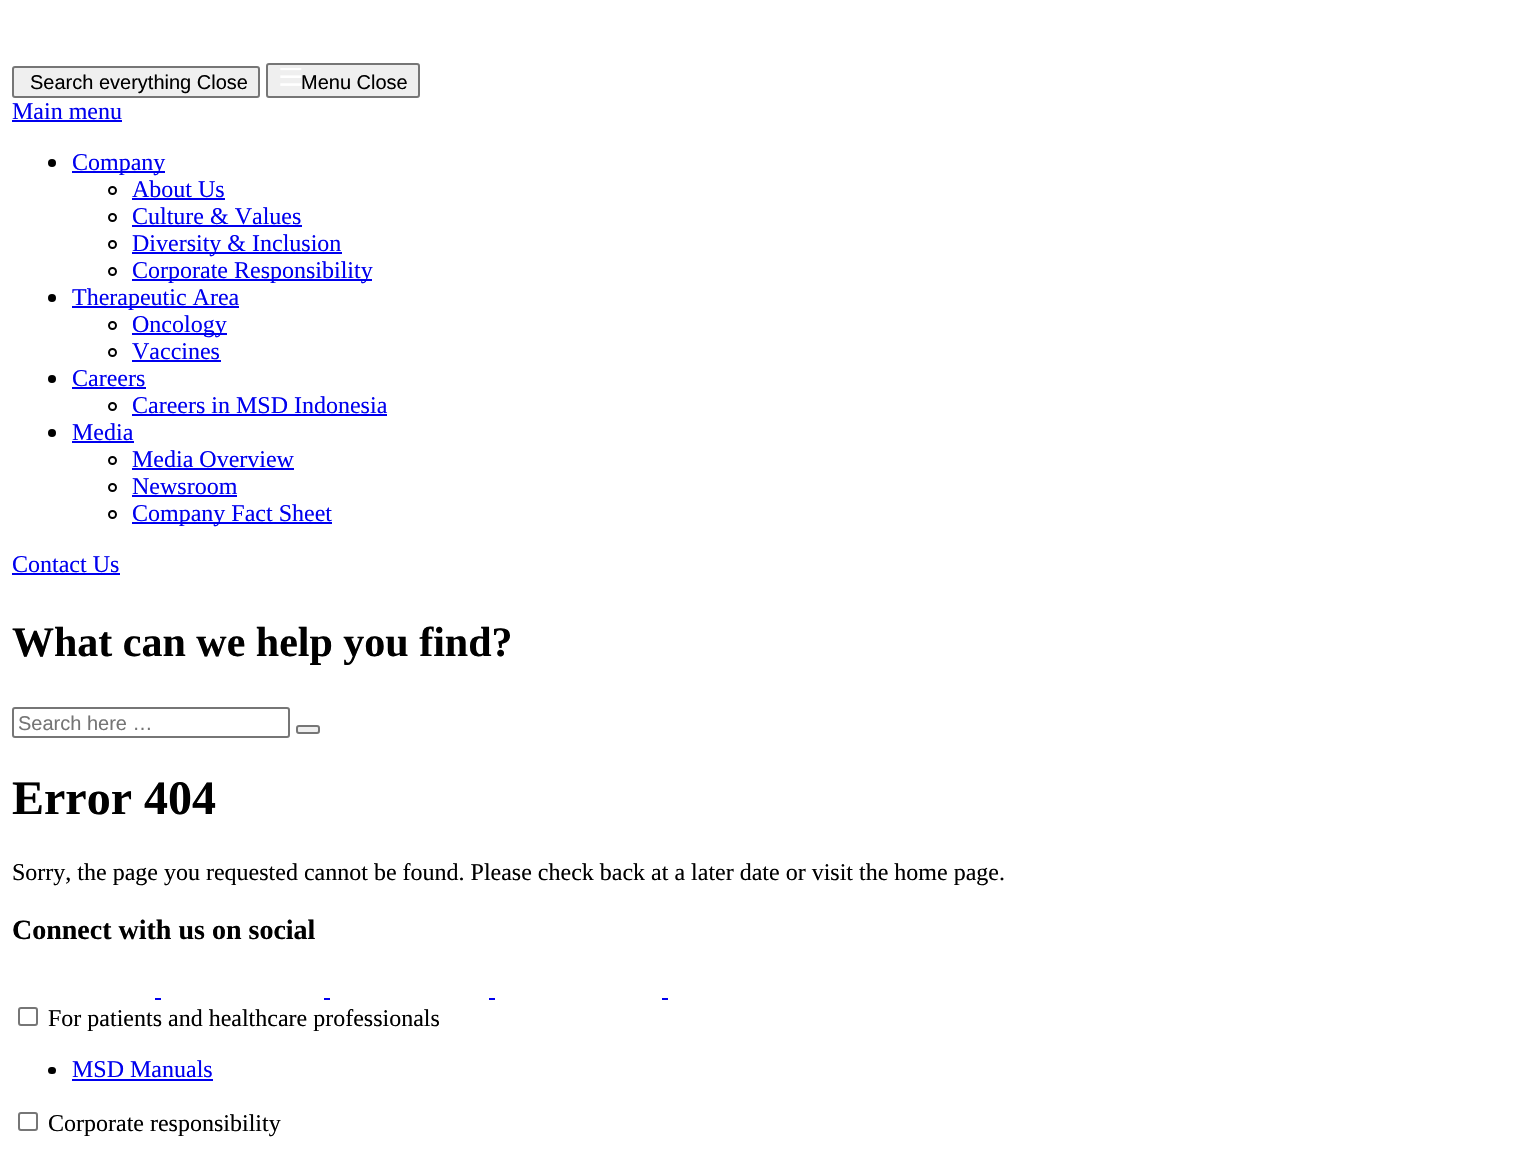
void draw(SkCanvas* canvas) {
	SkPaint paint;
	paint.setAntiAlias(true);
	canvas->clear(0xffffffff);
	paint.setColor(0xffefefef);
	canvas->drawRoundRect(SkRect::MakeXYWH(13, 67, 246, 30), 2, 2, paint);
	paint.setStroke(true);
	paint.setStrokeWidth(2);
	paint.setColor(0xff767676);
	canvas->drawRoundRect(SkRect::MakeXYWH(13, 67, 246, 30), 2, 2, paint);
	SkFont f1(fontMgr->matchFamilyStyle("Liberation Sans", SkFontStyle::Normal()), 20);
	f1.setSubpixel(true);
	paint.setStroke(false);
	paint.setColor(0xff000000);
	canvas->drawString("Search everything Close", 30, 89, f1, paint);
	paint.setColor(0xffefefef);
	canvas->drawRoundRect(SkRect::MakeXYWH(267, 64, 152, 33), 2, 2, paint);
	paint.setStroke(true);
	paint.setColor(0xff767676);
	canvas->drawRoundRect(SkRect::MakeXYWH(267, 64, 152, 33), 2, 2, paint);
	canvas->drawImageRect(SkImages::DeferredFromEncodedData(SkData::MakeFromFileName("img1.png")), SkRect::MakeXYWH(280, 68, 22, 18), SkSamplingOptions());
	paint.setStroke(false);
	paint.setColor(0xff000000);
	canvas->drawString("Menu Close", 301, 89, f1, paint);
	SkFont f2(fontMgr->matchFamilyStyle("Liberation Serif", SkFontStyle::Normal()), 24);
	f2.setSubpixel(true);
	paint.setColor(0xff0000ee);
	canvas->drawString("Main menu", 12, 119, f2, paint);
	canvas->drawRect(SkRect::MakeXYWH(12, 120, 110, 2), paint);
	paint.setColor(0xff000000);
	canvas->drawCircle(52, 163, 4, paint);
	paint.setColor(0xff0000ee);
	canvas->drawRect(SkRect::MakeXYWH(72, 171, 93, 2), paint);
	canvas->drawString("Company", 72, 170, f2, paint);
	paint.setStroke(true);
	paint.setColor(0xff000000);
	canvas->drawCircle(112.5, 190.5, 3.5, paint);
	paint.setStroke(false);
	paint.setColor(0xff0000ee);
	canvas->drawString("About Us", 132, 197, f2, paint);
	canvas->drawRect(SkRect::MakeXYWH(132, 198, 93, 2), paint);
	paint.setStroke(true);
	paint.setColor(0xff000000);
	canvas->drawCircle(112.5, 217.5, 3.5, paint);
	paint.setStroke(false);
	paint.setColor(0xff0000ee);
	canvas->drawString("Culture & Values", 132, 224, f2, paint);
	canvas->drawRect(SkRect::MakeXYWH(132, 225, 170, 2), paint);
	paint.setStroke(true);
	paint.setColor(0xff000000);
	canvas->drawCircle(112.5, 244.5, 3.5, paint);
	paint.setStroke(false);
	paint.setColor(0xff0000ee);
	canvas->drawRect(SkRect::MakeXYWH(132, 252, 210, 2), paint);
	canvas->drawString("Diversity & Inclusion", 132, 251, f2, paint);
	paint.setStroke(true);
	paint.setColor(0xff000000);
	canvas->drawCircle(112.5, 271.5, 3.5, paint);
	paint.setStroke(false);
	paint.setColor(0xff0000ee);
	canvas->drawRect(SkRect::MakeXYWH(132, 279, 240, 2), paint);
	canvas->drawString("Corporate Responsibility", 132, 278, f2, paint);
	paint.setColor(0xff000000);
	canvas->drawCircle(52, 298, 4, paint);
	paint.setColor(0xff0000ee);
	canvas->drawRect(SkRect::MakeXYWH(72, 306, 167, 2), paint);
	canvas->drawString("Therapeutic Area", 72, 305, f2, paint);
	paint.setStroke(true);
	paint.setColor(0xff000000);
	canvas->drawCircle(112.5, 325.5, 3.5, paint);
	paint.setStroke(false);
	paint.setColor(0xff0000ee);
	canvas->drawRect(SkRect::MakeXYWH(132, 333, 95, 2), paint);
	canvas->drawString("Oncology", 132, 332, f2, paint);
	paint.setStroke(true);
	paint.setColor(0xff000000);
	canvas->drawCircle(112.5, 352.5, 3.5, paint);
	paint.setStroke(false);
	paint.setColor(0xff0000ee);
	canvas->drawString("Vaccines", 132, 359, f2, paint);
	canvas->drawRect(SkRect::MakeXYWH(132, 360, 89, 2), paint);
	paint.setColor(0xff000000);
	canvas->drawCircle(52, 379, 4, paint);
	paint.setColor(0xff0000ee);
	canvas->drawString("Careers", 72, 386, f2, paint);
	canvas->drawRect(SkRect::MakeXYWH(72, 387, 74, 2), paint);
	paint.setStroke(true);
	paint.setColor(0xff000000);
	canvas->drawCircle(112.5, 406.5, 3.5, paint);
	paint.setStroke(false);
	paint.setColor(0xff0000ee);
	canvas->drawString("Careers in MSD Indonesia", 132, 413, f2, paint);
	canvas->drawRect(SkRect::MakeXYWH(132, 414, 255, 2), paint);
	paint.setColor(0xff000000);
	canvas->drawCircle(52, 433, 4, paint);
	paint.setColor(0xff0000ee);
	canvas->drawString("Media", 72, 440, f2, paint);
	canvas->drawRect(SkRect::MakeXYWH(72, 441, 62, 2), paint);
	paint.setStroke(true);
	paint.setColor(0xff000000);
	canvas->drawCircle(112.5, 460.5, 3.5, paint);
	paint.setStroke(false);
	paint.setColor(0xff0000ee);
	canvas->drawString("Media Overview", 132, 467, f2, paint);
	canvas->drawRect(SkRect::MakeXYWH(132, 468, 162, 2), paint);
	paint.setStroke(true);
	paint.setColor(0xff000000);
	canvas->drawCircle(112.5, 487.5, 3.5, paint);
	paint.setStroke(false);
	paint.setColor(0xff0000ee);
	canvas->drawString("Newsroom", 132, 494, f2, paint);
	canvas->drawRect(SkRect::MakeXYWH(132, 495, 105, 2), paint);
	paint.setStroke(true);
	paint.setColor(0xff000000);
	canvas->drawCircle(112.5, 514.5, 3.5, paint);
	paint.setStroke(false);
	paint.setColor(0xff0000ee);
	canvas->drawRect(SkRect::MakeXYWH(132, 522, 200, 2), paint);
	canvas->drawString("Company Fact Sheet", 132, 521, f2, paint);
	canvas->drawString("Contact Us", 12, 572, f2, paint);
	canvas->drawRect(SkRect::MakeXYWH(12, 573, 108, 2), paint);
	SkFont f3(fontMgr->matchFamilyStyle("Liberation Serif", SkFontStyle::Bold()), 42);
	f3.setSubpixel(true);
	paint.setColor(0xff000000);
	canvas->drawString("What can we help you find?", 12, 656, f3, paint);
	paint.setStroke(true);
	paint.setColor(0xff767676);
	canvas->drawRoundRect(SkRect::MakeXYWH(13, 708, 276, 29), 2, 2, paint);
	paint.setStroke(false);
	paint.setColor(0xff757575);
	canvas->drawString("Search here …", 18, 730, f1, paint);
	paint.setColor(0xffefefef);
	canvas->drawRoundRect(SkRect::MakeXYWH(297, 726, 22, 7), 2, 2, paint);
	paint.setStroke(true);
	paint.setColor(0xff767676);
	canvas->drawRoundRect(SkRect::MakeXYWH(297, 726, 22, 7), 2, 2, paint);
	SkFont f4(fontMgr->matchFamilyStyle("Liberation Serif", SkFontStyle::Bold()), 48);
	f4.setSubpixel(true);
	paint.setStroke(false);
	paint.setColor(0xff000000);
	canvas->drawString("Error 404", 12, 814, f4, paint);
	canvas->drawString("Sorry, the page you requested cannot be found. Please check back at a later date or visit the home page.", 12, 880, f2, paint);
	SkFont f5(fontMgr->matchFamilyStyle("Liberation Serif", SkFontStyle::Bold()), 28);
	f5.setSubpixel(true);
	canvas->drawString("Connect with us on social", 12, 939, f5, paint);
	paint.setColor(0xff0000ee);
	canvas->drawRect(SkRect::MakeXYWH(155, 998, 6, 2), paint);
	canvas->drawRect(SkRect::MakeXYWH(324, 998, 6, 2), paint);
	canvas->drawRect(SkRect::MakeXYWH(489, 998, 6, 2), paint);
	canvas->drawRect(SkRect::MakeXYWH(662, 998, 6, 2), paint);
	paint.setStroke(true);
	paint.setColor(0xff767676);
	canvas->drawRoundRect(SkRect::MakeXYWH(19, 1008, 18, 17), 2, 2, paint);
	paint.setStroke(false);
	paint.setColor(0xff000000);
	canvas->drawString("For patients and healthcare professionals", 48, 1026, f2, paint);
	canvas->drawRoundRect(SkRect::MakeXYWH(48, 1067, 8, 7), 3.5, 3.5, paint);
	paint.setColor(0xff0000ee);
	canvas->drawString("MSD Manuals", 72, 1077, f2, paint);
	canvas->drawRect(SkRect::MakeXYWH(72, 1079, 141, 2), paint);
	paint.setStroke(true);
	paint.setColor(0xff767676);
	canvas->drawRoundRect(SkRect::MakeXYWH(19, 1113, 18, 17), 2, 2, paint);
	paint.setStroke(false);
	paint.setColor(0xff000000);
	canvas->drawString("Corporate responsibility", 48, 1131, f2, paint);
}
